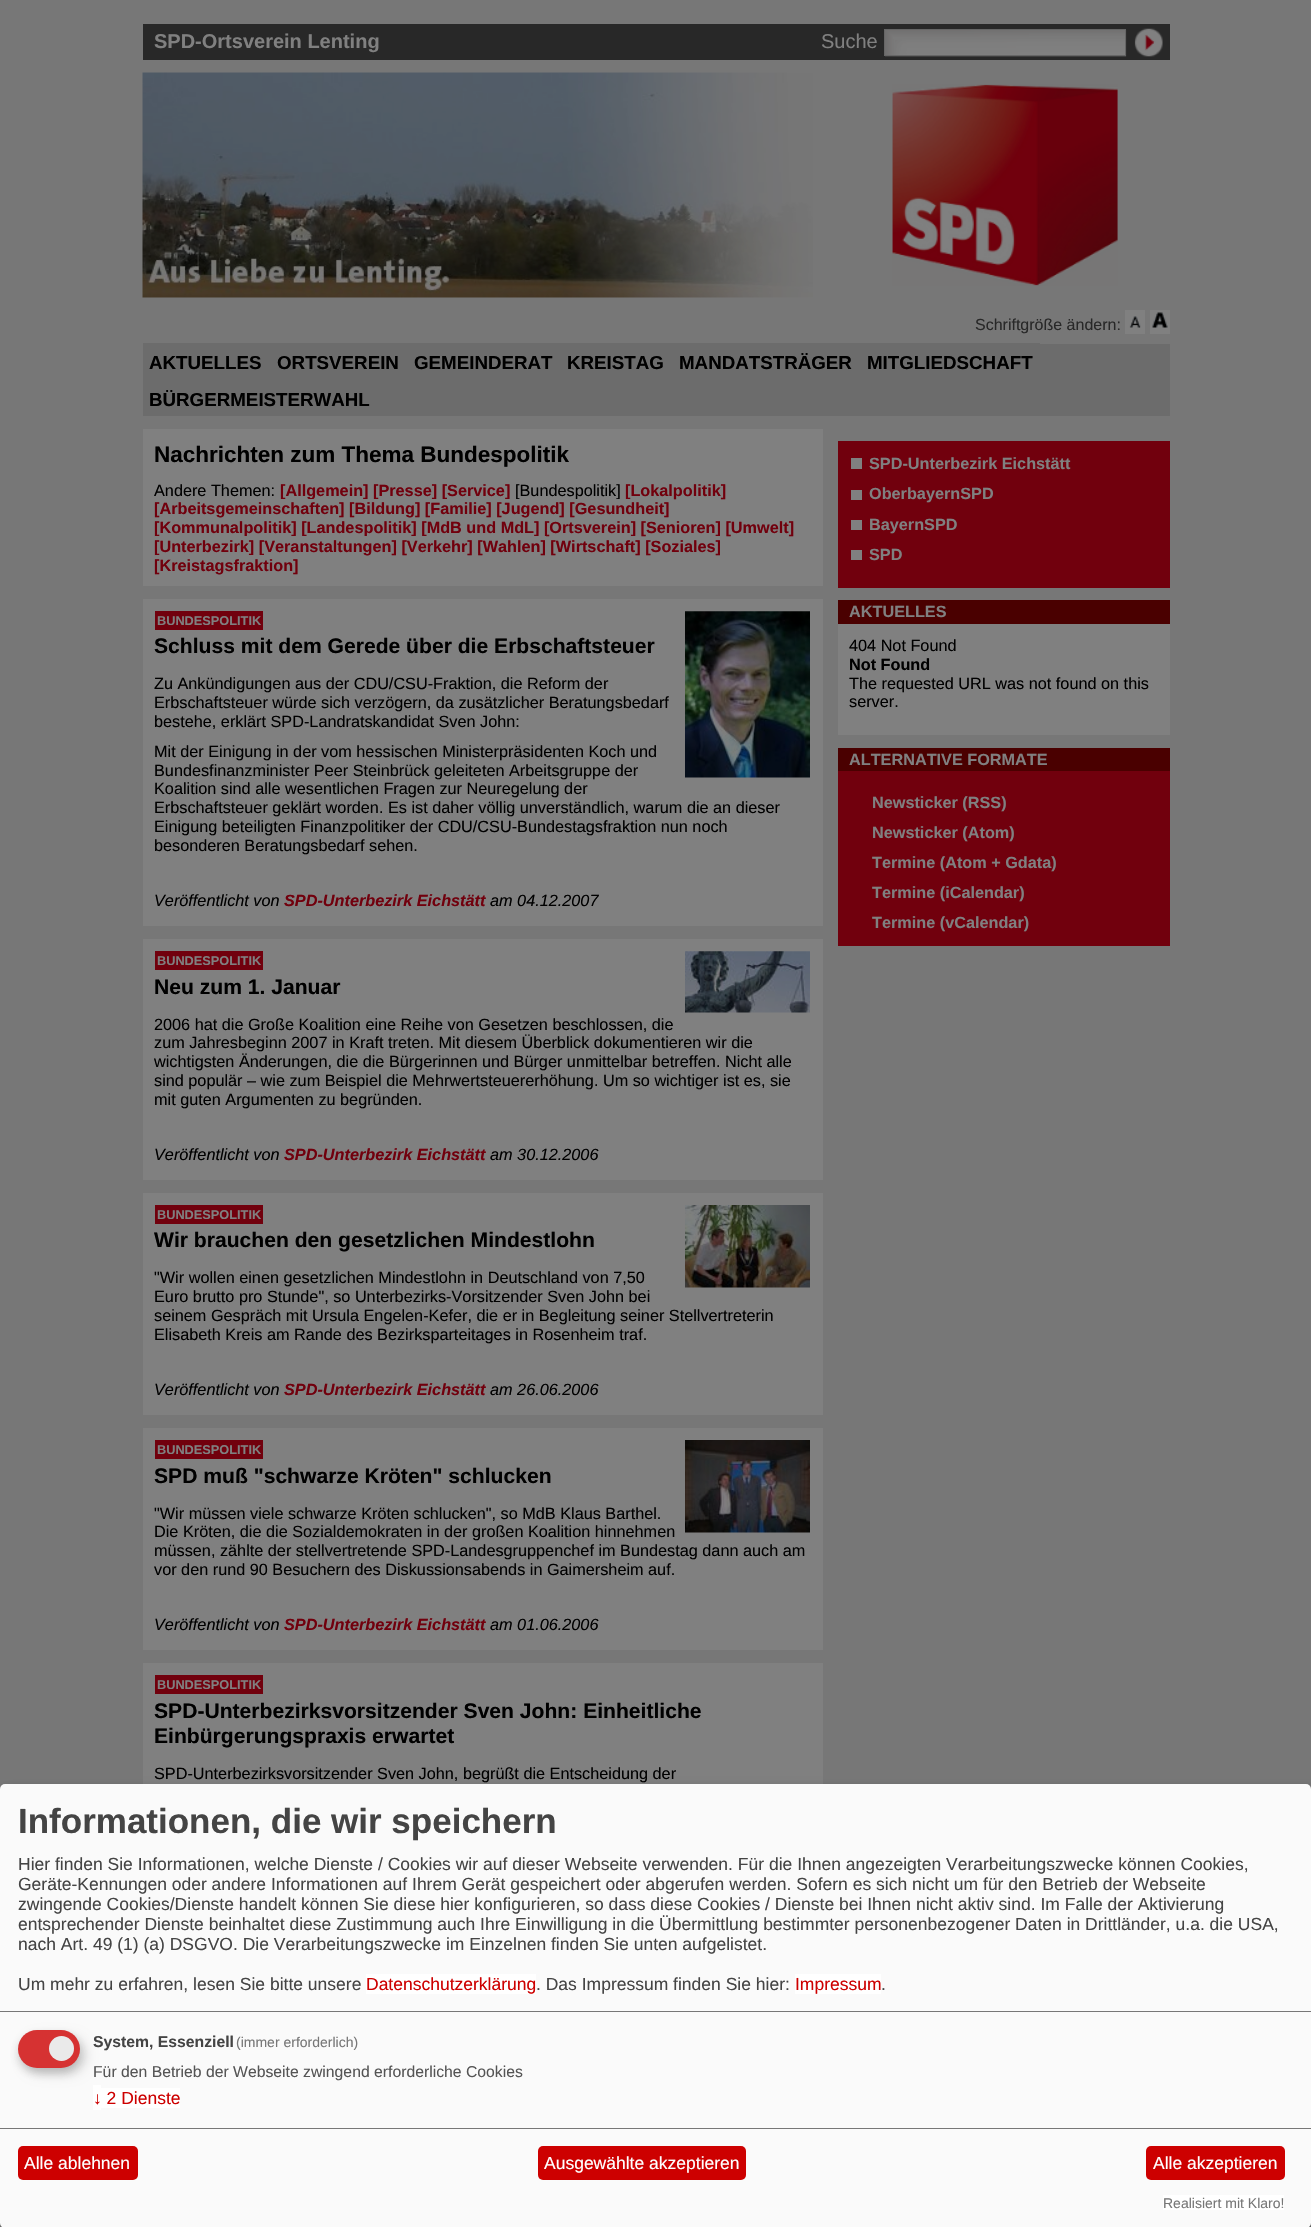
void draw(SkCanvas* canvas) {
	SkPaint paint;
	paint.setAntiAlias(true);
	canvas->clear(0xff777777);
	paint.setColor(0xff282828);
	canvas->drawRect(SkRect::MakeXYWH(143, 24, 1027, 36), paint);
	SkFont f1(fontMgr->matchFamilyStyle("Liberation Sans", SkFontStyle::Bold()), 20);
	f1.setSubpixel(true);
	paint.setColor(0xff808080);
	canvas->drawString("SPD-Ortsverein Lenting", 154, 48, f1, paint);
	SkFont f2(fontMgr->matchFamilyStyle("Liberation Sans", SkFontStyle::Normal()), 20);
	f2.setSubpixel(true);
	canvas->drawString("Suche", 821, 48, f2, paint);
	canvas->drawImageRect(SkImages::DeferredFromEncodedData(SkData::MakeFromFileName("img1.png")), SkRect::MakeXYWH(885, 30, 242, 27), SkSamplingOptions());
	paint.setStroke(true);
	paint.setStrokeWidth(1);
	paint.setColor(0xff666666);
	canvas->drawRect(SkRect::MakeXYWH(884.5, 29.5, 241, 26), paint);
	canvas->drawImageRect(SkImages::DeferredFromEncodedData(SkData::MakeFromFileName("img2.png")), SkRect::MakeXYWH(1126, 28, 37, 29), SkSamplingOptions());
	canvas->drawImageRect(SkImages::DeferredFromEncodedData(SkData::MakeFromFileName("img3.png")), SkRect::MakeXYWH(142, 72, 671, 226), SkSamplingOptions());
	canvas->drawImageRect(SkImages::DeferredFromEncodedData(SkData::MakeFromFileName("img4.png")), SkRect::MakeXYWH(892, 84, 226, 202), SkSamplingOptions());
	SkFont f3(fontMgr->matchFamilyStyle("Liberation Sans", SkFontStyle::Normal()), 16);
	f3.setSubpixel(true);
	paint.setStroke(false);
	paint.setColor(0xff282828);
	canvas->drawString("Schriftgröße ändern:", 975, 330, f3, paint);
	canvas->drawImageRect(SkImages::DeferredFromEncodedData(SkData::MakeFromFileName("img5.png")), SkRect::MakeXYWH(1125, 310, 20, 18), SkSamplingOptions());
	canvas->drawImageRect(SkImages::DeferredFromEncodedData(SkData::MakeFromFileName("img6.png")), SkRect::MakeXYWH(1150, 310, 20, 18), SkSamplingOptions());
	paint.setColor(0xff808080);
	canvas->drawRect(SkRect::MakeXYWH(1125, 328, 20, 6), paint);
	canvas->drawRect(SkRect::MakeXYWH(1150, 328, 20, 6), paint);
	paint.setColor(0xff6c6c6c);
	canvas->drawRect(SkRect::MakeXYWH(143, 344, 1027, 72), paint);
	SkFont f4(fontMgr->matchFamilyStyle("Liberation Sans", SkFontStyle::Bold()), 18.75);
	f4.setSubpixel(true);
	paint.setColor(0xff000000);
	canvas->drawString("AKTUELLES", 149, 369, f4, paint);
	paint.setColor(0xff6c6c6c);
	canvas->drawRect(SkRect::MakeXYWH(143, 343, 897, 1), paint);
	paint.setColor(0xff000000);
	canvas->drawString("ORTSVEREIN", 277, 369, f4, paint);
	canvas->drawString("GEMEINDERAT", 414, 369, f4, paint);
	canvas->drawString("KREISTAG", 567, 369, f4, paint);
	canvas->drawString("MANDATSTRÄGER", 679, 369, f4, paint);
	canvas->drawString("MITGLIEDSCHAFT", 867, 369, f4, paint);
	canvas->drawString("BÜRGERMEISTERWAHL", 149, 406, f4, paint);
	paint.setColor(0xff808080);
	canvas->drawRect(SkRect::MakeXYWH(143, 429, 680, 157), paint);
	SkFont f5(fontMgr->matchFamilyStyle("Liberation Sans", SkFontStyle::Bold()), 22.5);
	f5.setSubpixel(true);
	paint.setColor(0xff000000);
	canvas->drawString("Nachrichten zum Thema Bundespolitik", 154, 462, f5, paint);
	SkFont f6(fontMgr->matchFamilyStyle("Liberation Sans", SkFontStyle::Normal()), 16.25);
	f6.setSubpixel(true);
	canvas->drawString("Andere Themen:", 154, 496, f6, paint);
	SkFont f7(fontMgr->matchFamilyStyle("Liberation Sans", SkFontStyle::Bold()), 16.25);
	f7.setSubpixel(true);
	paint.setColor(0xff71000d);
	canvas->drawString("[Allgemein] [Presse] [Service]", 280, 496, f7, paint);
	paint.setColor(0xff000000);
	canvas->drawString("[Bundespolitik]", 515, 496, f6, paint);
	paint.setColor(0xff71000d);
	canvas->drawString("[Lokalpolitik]", 625, 496, f7, paint);
	paint.setColor(0xff808080);
	canvas->drawRect(SkRect::MakeXYWH(363, 499, 16, 1), paint);
	canvas->drawRect(SkRect::MakeXYWH(431, 499, 16, 1), paint);
	canvas->drawRect(SkRect::MakeXYWH(505, 499, 15, 1), paint);
	canvas->drawRect(SkRect::MakeXYWH(575, 499, 56, 1), paint);
	paint.setColor(0xff71000d);
	canvas->drawString("[Arbeitsgemeinschaften] [Bildung] [Familie] [Jugend] [Gesundheit]", 154, 514, f7, paint);
	paint.setColor(0xff808080);
	canvas->drawRect(SkRect::MakeXYWH(280, 499, 33, 1), paint);
	paint.setColor(0xff71000d);
	canvas->drawString("[Kommunalpolitik] [Landespolitik] [MdB und MdL] [Ortsverein] [Senioren] [Umwelt]", 154, 533, f7, paint);
	paint.setColor(0xff808080);
	canvas->drawRect(SkRect::MakeXYWH(291, 536, 77, 1), paint);
	canvas->drawRect(SkRect::MakeXYWH(411, 536, 16, 1), paint);
	canvas->drawRect(SkRect::MakeXYWH(534, 536, 12, 1), paint);
	canvas->drawRect(SkRect::MakeXYWH(631, 536, 5, 1), paint);
	canvas->drawRect(SkRect::MakeXYWH(646, 536, 75, 1), paint);
	paint.setColor(0xff71000d);
	canvas->drawString("[Unterbezirk] [Veranstaltungen] [Verkehr] [Wahlen] [Wirtschaft] [Soziales]", 154, 552, f7, paint);
	paint.setColor(0xff808080);
	canvas->drawRect(SkRect::MakeXYWH(155, 536, 93, 1), paint);
	paint.setColor(0xff71000d);
	canvas->drawString("[Kreistagsfraktion]", 154, 571, f7, paint);
	paint.setColor(0xff808080);
	canvas->drawRect(SkRect::MakeXYWH(155, 555, 110, 1), paint);
	canvas->drawRect(SkRect::MakeXYWH(143, 599, 680, 327), paint);
	paint.setColor(0xff71000d);
	canvas->drawRect(SkRect::MakeXYWH(155, 611, 108, 19), paint);
	SkFont f8(fontMgr->matchFamilyStyle("Liberation Sans", SkFontStyle::Bold()), 12.75);
	f8.setSubpixel(true);
	paint.setColor(0xff808080);
	canvas->drawString("BUNDESPOLITIK", 157, 625, f8, paint);
	canvas->drawImageRect(SkImages::DeferredFromEncodedData(SkData::MakeFromFileName("img7.png")), SkRect::MakeXYWH(685, 611, 125, 167), SkSamplingOptions());
	SkFont f9(fontMgr->matchFamilyStyle("Liberation Sans", SkFontStyle::Bold()), 21.1);
	f9.setSubpixel(true);
	paint.setColor(0xff000000);
	canvas->drawString("Schluss mit dem Gerede über die Erbschaftsteuer", 154, 653, f9, paint);
	canvas->drawString("Zu Ankündigungen aus der CDU/CSU-Fraktion, die Reform der", 154, 689, f6, paint);
	canvas->drawString("Erbschaftsteuer würde sich verzögern, da zusätzlicher Beratungsbedarf", 154, 708, f6, paint);
	canvas->drawString("bestehe, erklärt SPD-Landratskandidat Sven John:", 154, 727, f6, paint);
	canvas->drawString("Mit der Einigung in der vom hessischen Ministerpräsidenten Koch und", 154, 757, f6, paint);
	canvas->drawString("Bundesfinanzminister Peer Steinbrück geleiteten Arbeitsgruppe der", 154, 776, f6, paint);
	canvas->drawString("Koalition sind alle wesentlichen Fragen zur Neuregelung der", 154, 794, f6, paint);
	canvas->drawString("Erbschaftsteuer geklärt worden. Es ist daher völlig unverständlich, warum die an dieser", 154, 813, f6, paint);
	canvas->drawString("Einigung beteiligten Finanzpolitiker der CDU/CSU-Bundestagsfraktion nun noch", 154, 832, f6, paint);
	canvas->drawString("besonderen Beratungsbedarf sehen.", 154, 851, f6, paint);
	SkFont f10(fontMgr->matchFamilyStyle("Liberation Sans", SkFontStyle::Italic()), 16.25);
	f10.setSubpixel(true);
	canvas->drawString("Veröffentlicht von", 154, 906, f10, paint);
	SkFont f11(fontMgr->matchFamilyStyle("Liberation Sans", SkFontStyle::BoldItalic()), 16.25);
	f11.setSubpixel(true);
	paint.setColor(0xff71000d);
	canvas->drawString("SPD-Unterbezirk Eichstätt", 284, 906, f11, paint);
	paint.setColor(0xff000000);
	canvas->drawString("am 04.12.2007", 490, 906, f10, paint);
	paint.setColor(0xff808080);
	canvas->drawRect(SkRect::MakeXYWH(143, 939, 680, 241), paint);
	paint.setColor(0xff71000d);
	canvas->drawRect(SkRect::MakeXYWH(155, 951, 108, 19), paint);
	paint.setColor(0xff808080);
	canvas->drawString("BUNDESPOLITIK", 157, 965, f8, paint);
	canvas->drawImageRect(SkImages::DeferredFromEncodedData(SkData::MakeFromFileName("img8.png")), SkRect::MakeXYWH(685, 951, 125, 62), SkSamplingOptions());
	paint.setColor(0xff000000);
	canvas->drawString("Neu zum 1. Januar", 154, 994, f9, paint);
	canvas->drawString("2006 hat die Große Koalition eine Reihe von Gesetzen beschlossen, die", 154, 1030, f6, paint);
	canvas->drawString("zum Jahresbeginn 2007 in Kraft treten. Mit diesem Überblick dokumentieren wir die", 154, 1048, f6, paint);
	canvas->drawString("wichtigsten Änderungen, die die Bürgerinnen und Bürger unmittelbar betreffen. Nicht alle", 154, 1067, f6, paint);
	canvas->drawString("sind populär – wie zum Beispiel die Mehrwertsteuererhöhung. Um so wichtiger ist es, sie", 154, 1086, f6, paint);
	canvas->drawString("mit guten Argumenten zu begründen.", 154, 1105, f6, paint);
	canvas->drawString("Veröffentlicht von", 154, 1160, f10, paint);
	paint.setColor(0xff71000d);
	canvas->drawString("SPD-Unterbezirk Eichstätt", 284, 1160, f11, paint);
	paint.setColor(0xff000000);
	canvas->drawString("am 30.12.2006", 490, 1160, f10, paint);
	paint.setColor(0xff808080);
	canvas->drawRect(SkRect::MakeXYWH(143, 1193, 680, 222), paint);
	paint.setColor(0xff71000d);
	canvas->drawRect(SkRect::MakeXYWH(155, 1205, 108, 19), paint);
	paint.setColor(0xff808080);
	canvas->drawString("BUNDESPOLITIK", 157, 1219, f8, paint);
	canvas->drawImageRect(SkImages::DeferredFromEncodedData(SkData::MakeFromFileName("img9.png")), SkRect::MakeXYWH(685, 1205, 125, 83), SkSamplingOptions());
	paint.setColor(0xff000000);
	canvas->drawString("Wir brauchen den gesetzlichen Mindestlohn", 154, 1247, f9, paint);
	canvas->drawString("\"Wir wollen einen gesetzlichen Mindestlohn in Deutschland von 7,50", 154, 1283, f6, paint);
	canvas->drawString("Euro brutto pro Stunde\", so Unterbezirks-Vorsitzender Sven John bei", 154, 1302, f6, paint);
	canvas->drawString("seinem Gespräch mit Ursula Engelen-Kefer, die er in Begleitung seiner Stellvertreterin", 154, 1321, f6, paint);
	canvas->drawString("Elisabeth Kreis am Rande des Bezirksparteitages in Rosenheim traf.", 154, 1340, f6, paint);
	canvas->drawString("Veröffentlicht von", 154, 1395, f10, paint);
	paint.setColor(0xff71000d);
	canvas->drawString("SPD-Unterbezirk Eichstätt", 284, 1395, f11, paint);
	paint.setColor(0xff000000);
	canvas->drawString("am 26.06.2006", 490, 1395, f10, paint);
	paint.setColor(0xff808080);
	canvas->drawRect(SkRect::MakeXYWH(143, 1428, 680, 222), paint);
	paint.setColor(0xff71000d);
	canvas->drawRect(SkRect::MakeXYWH(155, 1440, 108, 19), paint);
	paint.setColor(0xff808080);
	canvas->drawString("BUNDESPOLITIK", 157, 1454, f8, paint);
	canvas->drawImageRect(SkImages::DeferredFromEncodedData(SkData::MakeFromFileName("img10.png")), SkRect::MakeXYWH(685, 1440, 125, 93), SkSamplingOptions());
	paint.setColor(0xff000000);
	canvas->drawString("SPD muß \"schwarze Kröten\" schlucken", 154, 1483, f9, paint);
	canvas->drawString("\"Wir müssen viele schwarze Kröten schlucken\", so MdB Klaus Barthel.", 154, 1519, f6, paint);
	canvas->drawString("Die Kröten, die die Sozialdemokraten in der großen Koalition hinnehmen", 154, 1537, f6, paint);
	canvas->drawString("müssen, zählte der stellvertretende SPD-Landesgruppenchef im Bundestag dann auch am", 154, 1556, f6, paint);
	canvas->drawString("vor den rund 90 Besuchern des Diskussionsabends in Gaimersheim auf.", 154, 1575, f6, paint);
	canvas->drawString("Veröffentlicht von", 154, 1630, f10, paint);
	paint.setColor(0xff71000d);
	canvas->drawString("SPD-Unterbezirk Eichstätt", 284, 1630, f11, paint);
	paint.setColor(0xff000000);
	canvas->drawString("am 01.06.2006", 490, 1630, f10, paint);
	paint.setColor(0xff808080);
	canvas->drawRect(SkRect::MakeXYWH(143, 1663, 680, 121), paint);
	paint.setColor(0xff71000d);
	canvas->drawRect(SkRect::MakeXYWH(155, 1675, 108, 19), paint);
	paint.setColor(0xff808080);
	canvas->drawString("BUNDESPOLITIK", 157, 1689, f8, paint);
	paint.setColor(0xff000000);
	canvas->drawString("SPD-Unterbezirksvorsitzender Sven John: Einheitliche", 154, 1718, f9, paint);
	canvas->drawString("Einbürgerungspraxis erwartet", 154, 1743, f9, paint);
	canvas->drawString("SPD-Unterbezirksvorsitzender Sven John, begrüßt die Entscheidung der", 154, 1779, f6, paint);
	paint.setColor(0xff71000d);
	canvas->drawRect(SkRect::MakeXYWH(838, 441, 332, 147), paint);
	paint.setColor(0xff808080);
	canvas->drawRect(SkRect::MakeXYWH(851, 458, 11, 11), paint);
	canvas->drawString("SPD-Unterbezirk Eichstätt", 869, 469, f7, paint);
	canvas->drawRect(SkRect::MakeXYWH(851, 490, 11, 10), paint);
	canvas->drawString("OberbayernSPD", 869, 499, f7, paint);
	canvas->drawRect(SkRect::MakeXYWH(851, 520, 11, 10), paint);
	canvas->drawString("BayernSPD", 869, 530, f7, paint);
	canvas->drawRect(SkRect::MakeXYWH(851, 550, 11, 10), paint);
	canvas->drawString("SPD", 869, 560, f7, paint);
	paint.setColor(0xff4a0000);
	canvas->drawRect(SkRect::MakeXYWH(838, 600, 332, 24), paint);
	paint.setColor(0xff808080);
	canvas->drawString("AKTUELLES", 849, 617, f7, paint);
	canvas->drawRect(SkRect::MakeXYWH(838, 624, 332, 111), paint);
	paint.setColor(0xff000000);
	canvas->drawString("404 Not Found", 849, 651, f6, paint);
	canvas->drawString("Not Found", 849, 670, f7, paint);
	canvas->drawString("The requested URL was not found on this", 849, 689, f6, paint);
	canvas->drawString("server.", 849, 707, f6, paint);
	paint.setColor(0xff4a0000);
	canvas->drawRect(SkRect::MakeXYWH(838, 748, 332, 23), paint);
	paint.setColor(0xff808080);
	canvas->drawString("ALTERNATIVE FORMATE", 849, 765, f7, paint);
	paint.setColor(0xff71000d);
	canvas->drawRect(SkRect::MakeXYWH(838, 771, 332, 175), paint);
	paint.setColor(0xff808080);
	canvas->drawString("Newsticker (RSS)", 872, 808, f7, paint);
	canvas->drawString("Newsticker (Atom)", 872, 838, f7, paint);
	canvas->drawString("Termine (Atom + Gdata)", 872, 868, f7, paint);
	canvas->drawString("Termine (iCalendar)", 872, 898, f7, paint);
	canvas->drawString("Termine (vCalendar)", 872, 928, f7, paint);
	paint.setColor(0x30000000);
	paint.setMaskFilter(SkMaskFilter::MakeBlur(kNormal_SkBlurStyle, 6));
	canvas->drawRoundRect(SkRect::MakeXYWH(6, 1790, 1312, 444), 5, 5, paint);
	paint.setMaskFilter(nullptr);
	paint.setColor(0x33000000);
	paint.setMaskFilter(SkMaskFilter::MakeBlur(kNormal_SkBlurStyle, 4));
	canvas->drawRoundRect(SkRect::MakeXYWH(0, 1789, 1311, 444), 5, 5, paint);
	paint.setMaskFilter(nullptr);
	paint.setColor(0xfffafafa);
	canvas->drawRoundRect(SkRect::MakeXYWH(0, 1784, 1311, 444), 5, 5, paint);
	paint.setColor(0xff777777);
	canvas->drawRect(SkRect::MakeXYWH(0, 2011, 1311, 1), paint);
	SkFont f12(fontMgr->matchFamilyStyle("Liberation Sans", SkFontStyle::Bold()), 35);
	f12.setSubpixel(true);
	paint.setColor(0xff444444);
	canvas->drawString("Informationen, die wir speichern", 18, 1833, f12, paint);
	SkFont f13(fontMgr->matchFamilyStyle("Liberation Sans", SkFontStyle::Normal()), 17.5);
	f13.setSubpixel(true);
	canvas->drawString("Hier finden Sie Informationen, welche Dienste / Cookies wir auf dieser Webseite verwenden. Für die Ihnen angezeigten Verarbeitungszwecke können Cookies,", 18, 1870, f13, paint);
	canvas->drawString("Geräte-Kennungen oder andere Informationen auf Ihrem Gerät gespeichert oder abgerufen werden. Sofern es sich nicht um für den Betrieb der Webseite", 18, 1890, f13, paint);
	canvas->drawString("zwingende Cookies/Dienste handelt können Sie diese hier konfigurieren, so dass diese Cookies / Dienste bei Ihnen nicht aktiv sind. Im Falle der Aktivierung", 18, 1910, f13, paint);
	canvas->drawString("entsprechender Dienste beinhaltet diese Zustimmung auch Ihre Einwilligung in die Übermittlung bestimmter personenbezogener Daten in Drittländer, u.a. die USA,", 18, 1930, f13, paint);
	canvas->drawString("nach Art. 49 (1) (a) DSGVO. Die Verarbeitungszwecke im Einzelnen finden Sie unten aufgelistet.", 18, 1950, f13, paint);
	canvas->drawString("Um mehr zu erfahren, lesen Sie bitte unsere", 18, 1990, f13, paint);
	paint.setColor(0xffffffff);
	canvas->drawRect(SkRect::MakeXYWH(366, 1974, 170, 20), paint);
	paint.setColor(0xffcd0000);
	canvas->drawString("Datenschutzerklärung", 366, 1990, f13, paint);
	paint.setColor(0xff444444);
	canvas->drawString(". Das Impressum finden Sie hier:", 536, 1990, f13, paint);
	paint.setColor(0xffffffff);
	canvas->drawRect(SkRect::MakeXYWH(795, 1974, 86, 20), paint);
	paint.setColor(0xffcd0000);
	canvas->drawString("Impressum", 795, 1990, f13, paint);
	paint.setColor(0xff444444);
	canvas->drawString(".", 881, 1990, f13, paint);
	paint.setColor(0xffffffff);
	canvas->drawRect(SkRect::MakeXYWH(93, 2085, 8, 25), paint);
	canvas->drawRect(SkRect::MakeXYWH(101, 2088, 79, 20), paint);
	paint.setColor(0x26000000);
	paint.setMaskFilter(SkMaskFilter::MakeBlur(kNormal_SkBlurStyle, 6));
	canvas->drawRoundRect(SkRect::MakeXYWH(24, 2036, 62, 38), 19, 19, paint);
	paint.setMaskFilter(nullptr);
	paint.setColor(0x33323232);
	paint.setMaskFilter(SkMaskFilter::MakeBlur(kNormal_SkBlurStyle, 4));
	canvas->drawRoundRect(SkRect::MakeXYWH(18, 2035, 62, 38), 19, 19, paint);
	paint.setMaskFilter(nullptr);
	paint.setColor(0xffd63232);
	canvas->drawRoundRect(SkRect::MakeXYWH(18, 2030, 62, 38), 19, 19, paint);
	paint.setColor(0xffeaeaea);
	canvas->drawCircle(61.5, 2048.5, 12.5, paint);
	SkFont f14(fontMgr->matchFamilyStyle("Liberation Sans", SkFontStyle::Bold()), 15.75);
	f14.setSubpixel(true);
	paint.setColor(0xff444444);
	canvas->drawString("System, Essenziell", 93, 2047, f14, paint);
	SkFont f15(fontMgr->matchFamilyStyle("Liberation Sans", SkFontStyle::Normal()), 14);
	f15.setSubpixel(true);
	paint.setColor(0xff777777);
	canvas->drawString("(immer erforderlich)", 236, 2047, f15, paint);
	SkFont f16(fontMgr->matchFamilyStyle("Liberation Sans", SkFontStyle::Normal()), 15.75);
	f16.setSubpixel(true);
	paint.setColor(0xff555555);
	canvas->drawString("Für den Betrieb der Webseite zwingend erforderliche Cookies", 93, 2077, f16, paint);
	paint.setColor(0xffcd0000);
	canvas->drawString("↓ 2 Dienste", 93, 2104, f13, paint);
	paint.setColor(0xff777777);
	canvas->drawRect(SkRect::MakeXYWH(0, 2128, 1311, 1), paint);
	paint.setColor(0xffcd0000);
	canvas->drawRoundRect(SkRect::MakeXYWH(18, 2146, 120, 34), 5, 5, paint);
	paint.setColor(0xffffffff);
	canvas->drawString("Alle ablehnen", 24, 2169, f13, paint);
	paint.setColor(0xffcd0000);
	canvas->drawRoundRect(SkRect::MakeXYWH(538, 2146, 208, 34), 5, 5, paint);
	paint.setColor(0xffffffff);
	canvas->drawString("Ausgewählte akzeptieren", 544, 2169, f13, paint);
	paint.setColor(0xffcd0000);
	canvas->drawRoundRect(SkRect::MakeXYWH(1146, 2146, 139, 34), 5, 5, paint);
	paint.setColor(0xffffffff);
	canvas->drawString("Alle akzeptieren", 1153, 2169, f13, paint);
	canvas->drawRect(SkRect::MakeXYWH(1163, 2195, 121, 15), paint);
	paint.setColor(0xff777777);
	canvas->drawString("Realisiert mit Klaro!", 1163, 2208, f15, paint);
}
